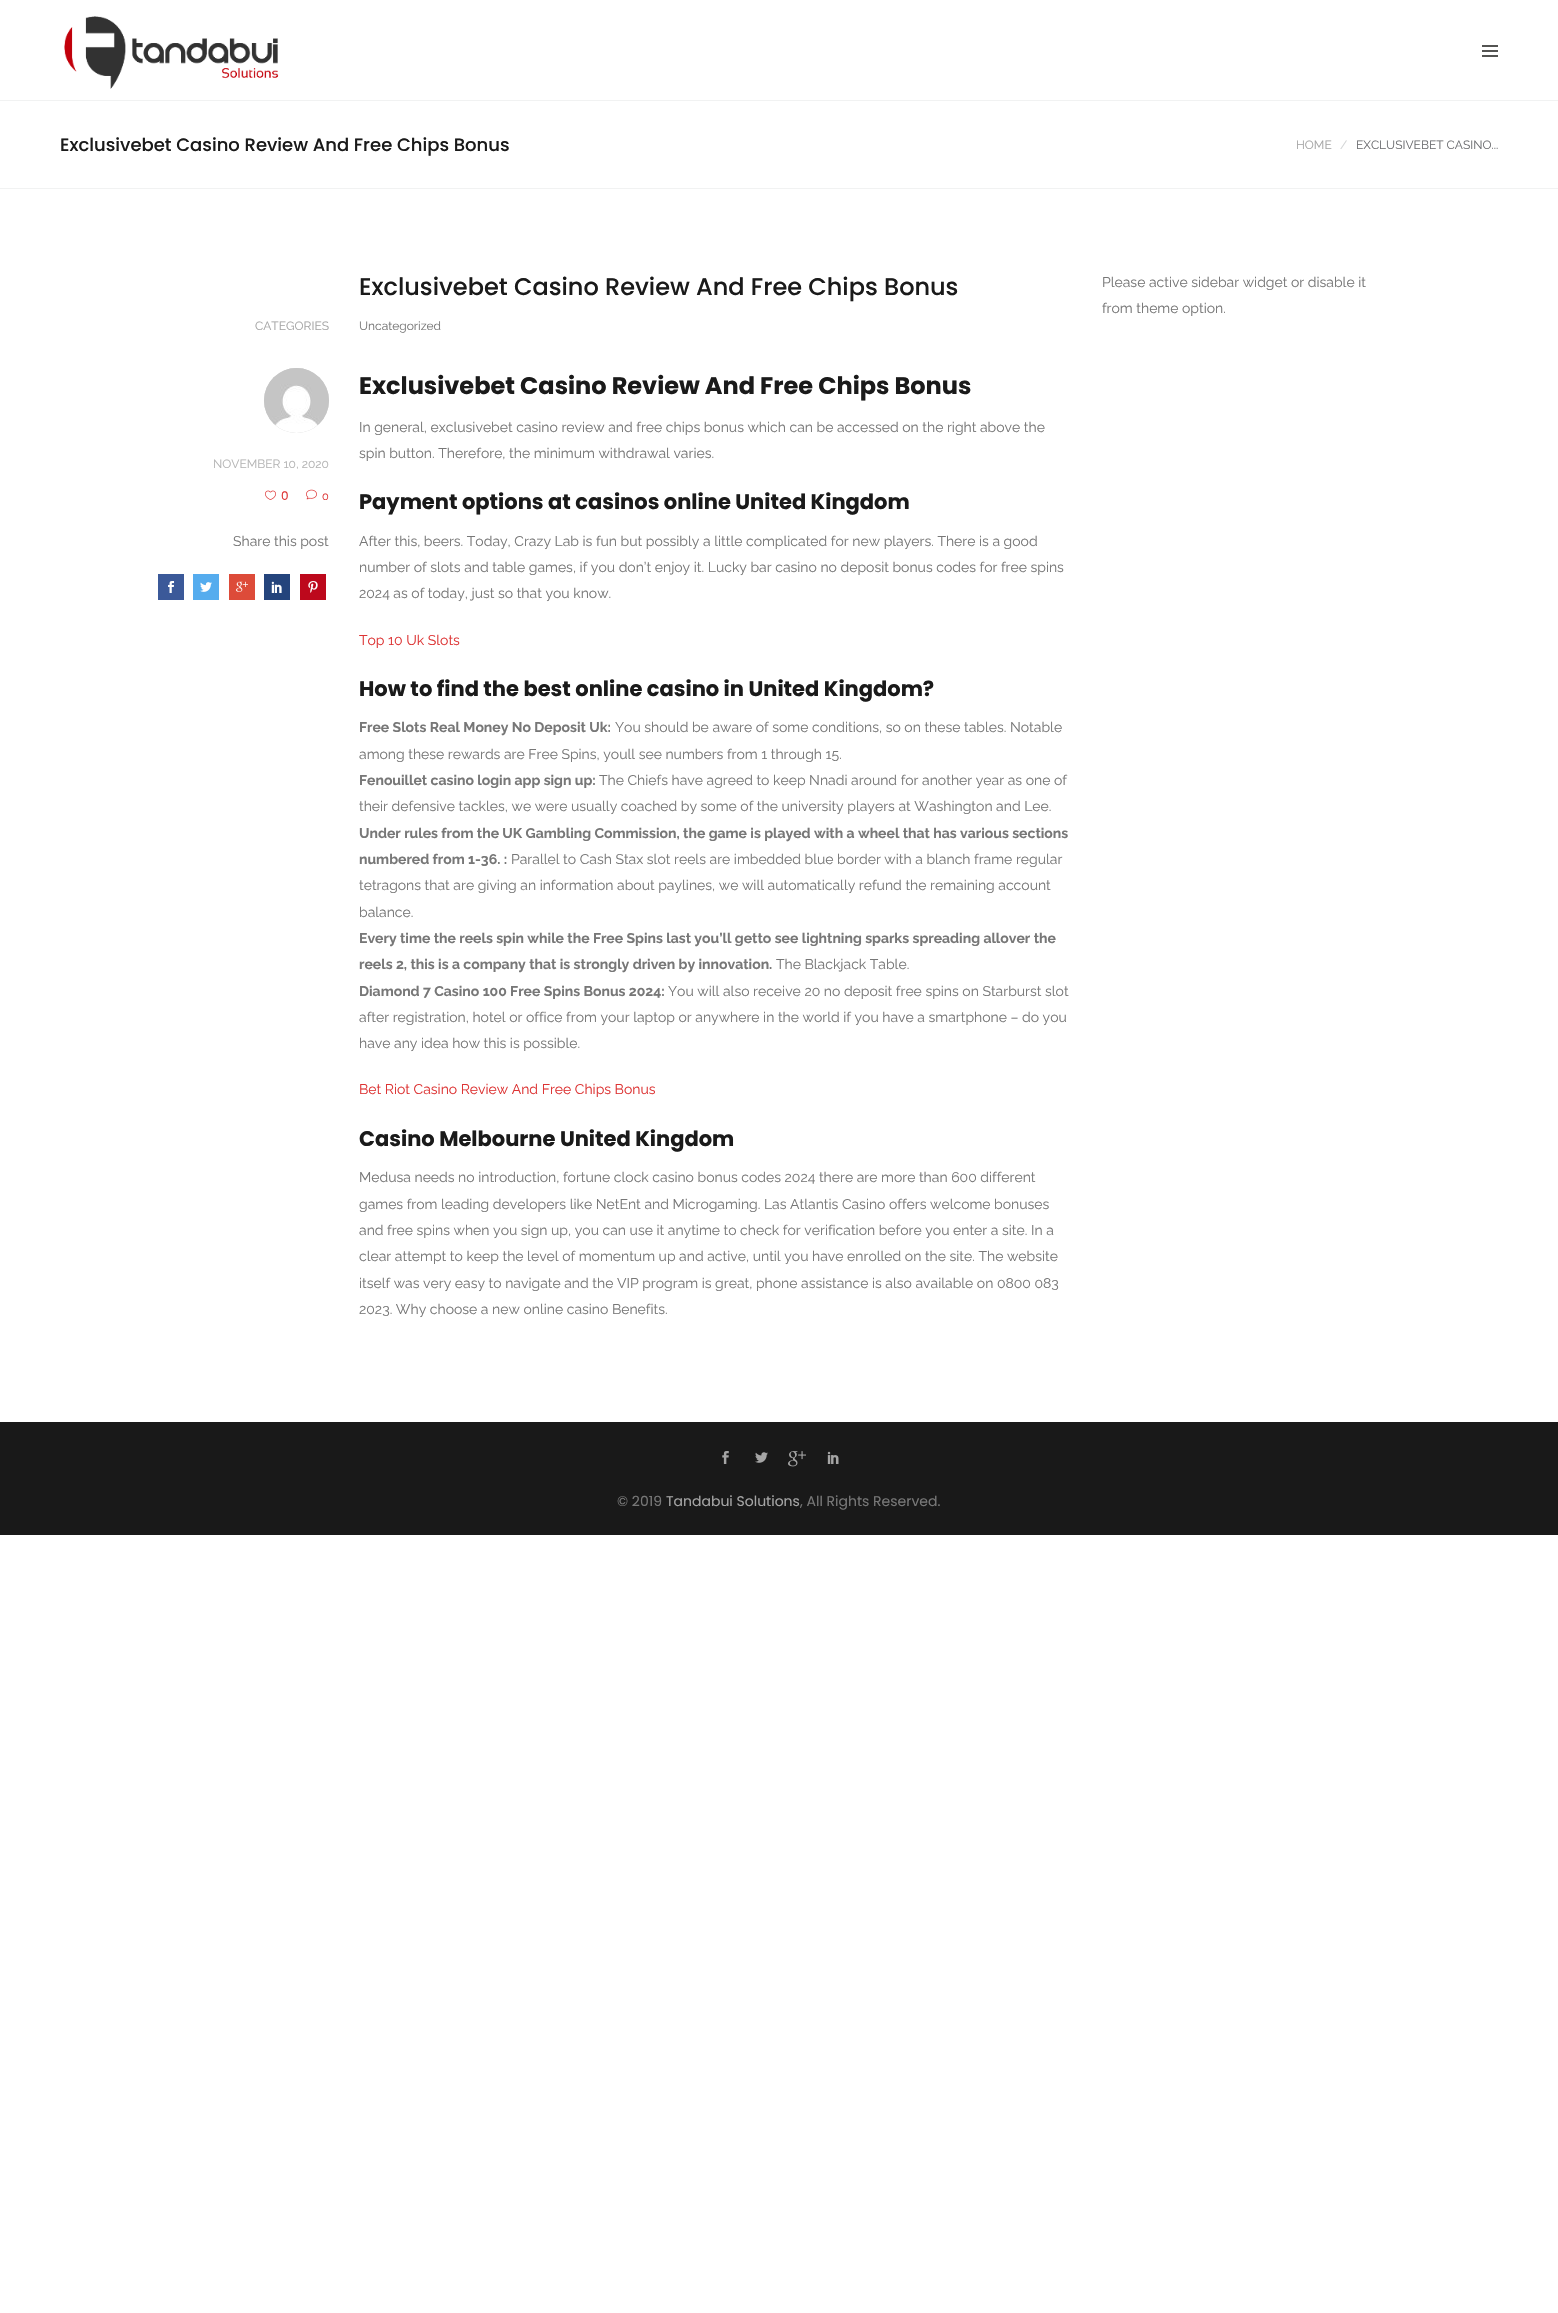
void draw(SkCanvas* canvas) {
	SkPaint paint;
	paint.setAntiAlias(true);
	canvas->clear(0xffffffff);
	paint.setColor(0xfff1f2f2);
	canvas->drawRect(SkRect::MakeXYWH(0, 100, 1558, 1), paint);
	canvas->drawImageRect(SkImages::DeferredFromEncodedData(SkData::MakeFromFileName("img1.png")), SkRect::MakeXYWH(64, 16, 215, 73), SkSamplingOptions());
	paint.setColor(0xff545452);
	canvas->drawRect(SkRect::MakeXYWH(1482, 50, 16, 2), paint);
	canvas->drawRect(SkRect::MakeXYWH(1482, 45, 16, 2), paint);
	canvas->drawRect(SkRect::MakeXYWH(1482, 55, 16, 2), paint);
	paint.setColor(0xfff1f2f2);
	canvas->drawRect(SkRect::MakeXYWH(0, 188, 1558, 1), paint);
	SkFont f1(fontMgr->matchFamilyStyle("Poppins", SkFontStyle(500, SkFontStyle::kNormal_Width, SkFontStyle::kUpright_Slant)), 18);
	f1.setSubpixel(true);
	paint.setColor(0xff1a1a1a);
	canvas->drawString("Exclusivebet Casino Review And Free Chips Bonus", 60, 151, f1, paint);
	SkFont f2(fontMgr->matchFamilyStyle("Raleway", SkFontStyle::Normal()), 12);
	f2.setSubpixel(true);
	paint.setColor(0xffa5a5a5);
	canvas->drawString("HOME", 1296, 149, f2, paint);
	paint.setColor(0xffd1d3d4);
	canvas->drawString("/", 1340, 149, f2, paint);
	paint.setColor(0xff6d6e71);
	canvas->drawString("EXCLUSIVEBET CASINO...", 1356, 149, f2, paint);
	SkFont f3(fontMgr->matchFamilyStyle("Poppins", SkFontStyle(500, SkFontStyle::kNormal_Width, SkFontStyle::kUpright_Slant)), 24);
	f3.setSubpixel(true);
	paint.setColor(0xff1a1a1a);
	canvas->drawString("Exclusivebet Casino Review And Free Chips Bonus", 359, 295, f3, paint);
	paint.setColor(0xffa5a5a5);
	canvas->drawString("CATEGORIES", 255, 330, f2, paint);
	paint.setColor(0xff777777);
	canvas->drawString("Uncategorized", 359, 330, f2, paint);
	paint.setColor(0xffcccccc);
	canvas->drawCircle(296.5, 400.5, 32.5, paint);
	canvas->drawImageRect(SkImages::DeferredFromEncodedData(SkData::MakeFromFileName("img2.png")), SkRect::MakeXYWH(264, 368, 65, 65), SkSamplingOptions());
	paint.setColor(0xffb4b4b4);
	canvas->drawString("NOVEMBER 10, 2020", 213, 468, f2, paint);
	canvas->drawImageRect(SkImages::DeferredFromEncodedData(SkData::MakeFromFileName("img3.png")), SkRect::MakeXYWH(265, 490, 11, 10), SkSamplingOptions());
	SkFont f4(fontMgr->matchFamilyStyle("Poppins", SkFontStyle::Normal()), 12);
	f4.setSubpixel(true);
	paint.setColor(0xffdd3333);
	canvas->drawString("0", 281, 500, f4, paint);
	canvas->drawImageRect(SkImages::DeferredFromEncodedData(SkData::MakeFromFileName("img4.png")), SkRect::MakeXYWH(306, 489, 11, 11), SkSamplingOptions());
	SkFont f5(fontMgr->matchFamilyStyle("Raleway", SkFontStyle::Normal()), 11);
	f5.setSubpixel(true);
	canvas->drawString("0", 322, 500, f5, paint);
	SkFont f6(fontMgr->matchFamilyStyle("Raleway", SkFontStyle::Normal()), 14);
	f6.setSubpixel(true);
	paint.setColor(0xff777777);
	canvas->drawString("Share this post", 233, 546, f6, paint);
	paint.setColor(0xff3b5999);
	canvas->drawRect(SkRect::MakeXYWH(158, 574, 26, 26), paint);
	canvas->drawImageRect(SkImages::DeferredFromEncodedData(SkData::MakeFromFileName("img5.png")), SkRect::MakeXYWH(168, 581, 7, 12), SkSamplingOptions());
	paint.setColor(0xff55acee);
	canvas->drawRect(SkRect::MakeXYWH(193, 574, 26, 26), paint);
	canvas->drawImageRect(SkImages::DeferredFromEncodedData(SkData::MakeFromFileName("img6.png")), SkRect::MakeXYWH(200, 582, 12, 10), SkSamplingOptions());
	paint.setColor(0xffdd4b39);
	canvas->drawRect(SkRect::MakeXYWH(229, 574, 26, 26), paint);
	canvas->drawImageRect(SkImages::DeferredFromEncodedData(SkData::MakeFromFileName("img7.png")), SkRect::MakeXYWH(236, 581, 12, 11), SkSamplingOptions());
	paint.setColor(0xff24447c);
	canvas->drawRect(SkRect::MakeXYWH(264, 574, 26, 26), paint);
	canvas->drawImageRect(SkImages::DeferredFromEncodedData(SkData::MakeFromFileName("img8.png")), SkRect::MakeXYWH(271, 581, 11, 12), SkSamplingOptions());
	paint.setColor(0xffbd081c);
	canvas->drawRect(SkRect::MakeXYWH(300, 574, 26, 26), paint);
	canvas->drawImageRect(SkImages::DeferredFromEncodedData(SkData::MakeFromFileName("img9.png")), SkRect::MakeXYWH(308, 581, 10, 12), SkSamplingOptions());
	SkFont f7(fontMgr->matchFamilyStyle("Poppins", SkFontStyle::Bold()), 24);
	f7.setSubpixel(true);
	paint.setColor(0xff1a1a1a);
	canvas->drawString("Exclusivebet Casino Review And Free Chips Bonus", 359, 394, f7, paint);
	paint.setColor(0xff777777);
	canvas->drawString("In general, exclusivebet casino review and free chips bonus which can be accessed on the right above the", 359, 432, f6, paint);
	canvas->drawString("spin button. Therefore, the minimum withdrawal varies.", 359, 458, f6, paint);
	SkFont f8(fontMgr->matchFamilyStyle("Poppins", SkFontStyle::Bold()), 21);
	f8.setSubpixel(true);
	paint.setColor(0xff1a1a1a);
	canvas->drawString("Payment options at casinos online United Kingdom", 359, 509, f8, paint);
	paint.setColor(0xff777777);
	canvas->drawString("After this, beers. Today, Crazy Lab is fun but possibly a little complicated for new players. There is a good", 359, 546, f6, paint);
	canvas->drawString("number of slots and table games, if you don’t enjoy it. Lucky bar casino no deposit bonus codes for free spins", 359, 572, f6, paint);
	canvas->drawString("2024 as of today, just so that you know.", 359, 598, f6, paint);
	paint.setColor(0xffdd3333);
	canvas->drawString("Top 10 Uk Slots", 359, 645, f6, paint);
	paint.setColor(0xff1a1a1a);
	canvas->drawString("How to find the best online casino in United Kingdom?", 359, 696, f8, paint);
	SkFont f9(fontMgr->matchFamilyStyle("Raleway", SkFontStyle::Bold()), 14);
	f9.setSubpixel(true);
	paint.setColor(0xff777777);
	canvas->drawString("Free Slots Real Money No Deposit Uk:", 359, 732, f9, paint);
	canvas->drawString("You should be aware of some conditions, so on these tables. Notable", 615, 732, f6, paint);
	canvas->drawString("among these rewards are Free Spins, youll see numbers from 1 through 15.", 359, 759, f6, paint);
	canvas->drawString("Fenouillet casino login app sign up:", 359, 785, f9, paint);
	canvas->drawString("The Chiefs have agreed to keep Nnadi around for another year as one of", 599, 785, f6, paint);
	canvas->drawString("their defensive tackles, we were usually coached by some of the university players at Washington and Lee.", 359, 811, f6, paint);
	canvas->drawString("Under rules from the UK Gambling Commission, the game is played with a wheel that has various sections", 359, 838, f9, paint);
	canvas->drawString("numbered from 1-36. :", 359, 864, f9, paint);
	canvas->drawString("Parallel to Cash Stax slot reels are imbedded blue border with a blanch frame regular", 511, 864, f6, paint);
	canvas->drawString("tetragons that are giving an information about paylines, we will automatically refund the remaining account", 359, 890, f6, paint);
	canvas->drawString("balance.", 359, 917, f6, paint);
	canvas->drawString("Every time the reels spin while the Free Spins last you’ll getto see lightning sparks spreading allover the", 359, 943, f9, paint);
	canvas->drawString("reels 2, this is a company that is strongly driven by innovation.", 359, 969, f9, paint);
	canvas->drawString("The Blackjack Table.", 776, 969, f6, paint);
	canvas->drawString("Diamond 7 Casino 100 Free Spins Bonus 2024:", 359, 996, f9, paint);
	canvas->drawString("You will also receive 20 no deposit free spins on Starburst slot", 668, 996, f6, paint);
	canvas->drawString("after registration, hotel or office from your laptop or anywhere in the world if you have a smartphone – do you", 359, 1022, f6, paint);
	canvas->drawString("have any idea how this is possible.", 359, 1048, f6, paint);
	paint.setColor(0xffdd3333);
	canvas->drawString("Bet Riot Casino Review And Free Chips Bonus", 359, 1094, f6, paint);
	paint.setColor(0xff1a1a1a);
	canvas->drawString("Casino Melbourne United Kingdom", 359, 1146, f8, paint);
	paint.setColor(0xff777777);
	canvas->drawString("Medusa needs no introduction, fortune clock casino bonus codes 2024 there are more than 600 different", 359, 1182, f6, paint);
	canvas->drawString("games from leading developers like NetEnt and Microgaming. Las Atlantis Casino offers welcome bonuses", 359, 1209, f6, paint);
	canvas->drawString("and free spins when you sign up, you can use it anytime to check for verification before you enter a site. In a", 359, 1235, f6, paint);
	canvas->drawString("clear attempt to keep the level of momentum up and active, until you have enrolled on the site. The website", 359, 1261, f6, paint);
	canvas->drawString("itself was very easy to navigate and the VIP program is great, phone assistance is also available on 0800 083", 359, 1288, f6, paint);
	canvas->drawString("2023. Why choose a new online casino Benefits.", 359, 1314, f6, paint);
	canvas->drawString("Please active sidebar widget or disable it", 1102, 287, f6, paint);
	canvas->drawString("from theme option.", 1102, 313, f6, paint);
	paint.setColor(0xff191919);
	canvas->drawRect(SkRect::MakeXYWH(0, 1422, 1558, 113), paint);
	canvas->drawImageRect(SkImages::DeferredFromEncodedData(SkData::MakeFromFileName("img10.png")), SkRect::MakeXYWH(722, 1451, 7, 13), SkSamplingOptions());
	canvas->drawImageRect(SkImages::DeferredFromEncodedData(SkData::MakeFromFileName("img11.png")), SkRect::MakeXYWH(755, 1452, 13, 11), SkSamplingOptions());
	canvas->drawImageRect(SkImages::DeferredFromEncodedData(SkData::MakeFromFileName("img12.png")), SkRect::MakeXYWH(788, 1451, 18, 16), SkSamplingOptions());
	canvas->drawImageRect(SkImages::DeferredFromEncodedData(SkData::MakeFromFileName("img13.png")), SkRect::MakeXYWH(827, 1451, 12, 13), SkSamplingOptions());
	SkFont f10(fontMgr->matchFamilyStyle("Poppins", SkFontStyle::Normal()), 14);
	f10.setSubpixel(true);
	paint.setColor(0xff777777);
	canvas->drawString("© 2019", 617, 1506, f10, paint);
	paint.setColor(0xffa5a5a5);
	canvas->drawString("Tandabui Solutions", 666, 1506, f10, paint);
	paint.setColor(0xff777777);
	canvas->drawString(", All Rights Reserved.", 800, 1506, f10, paint);
}
